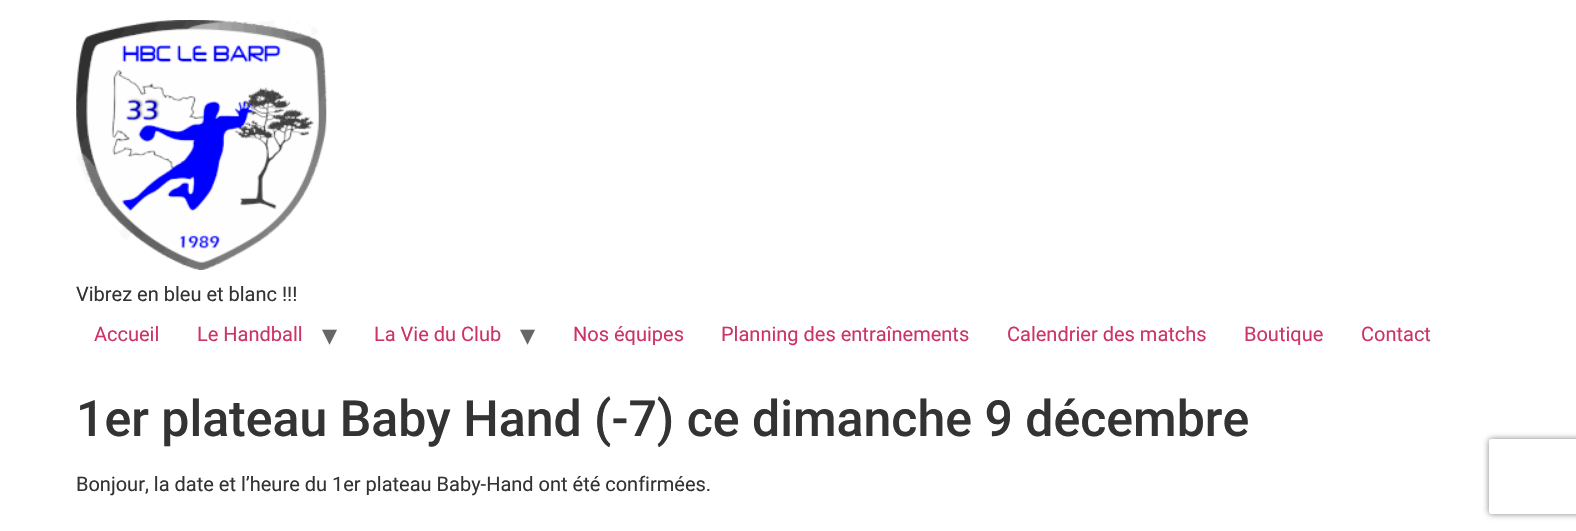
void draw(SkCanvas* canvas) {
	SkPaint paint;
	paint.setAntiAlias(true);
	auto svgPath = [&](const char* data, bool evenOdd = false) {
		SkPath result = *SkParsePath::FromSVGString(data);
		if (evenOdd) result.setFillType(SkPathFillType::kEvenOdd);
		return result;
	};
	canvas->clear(0xffffffff);
	canvas->drawImageRect(SkImages::DeferredFromEncodedData(SkData::MakeFromFileName("img1.png")), SkRect::MakeXYWH(76, 20, 251, 250), SkSamplingOptions());
	SkFont f1(fontMgr->matchFamilyStyle("Roboto", SkFontStyle::Normal()), 20);
	f1.setSubpixel(true);
	paint.setColor(0xff333333);
	canvas->drawString("Vibrez en bleu et blanc !!!", 76, 301, f1, paint);
	paint.setColor(0xffcc3366);
	canvas->drawString("Accueil", 94, 341, f1, paint);
	canvas->drawString("Le Handball", 197, 341, f1, paint);
	SkFont f2(fontMgr->matchFamilyStyle("DejaVu Sans", SkFontStyle::Normal()), 30);
	f2.setSubpixel(true);
	paint.setColor(0xff666666);
	canvas->drawString("▾", 322, 345, f2, paint);
	paint.setColor(0xffcc3366);
	canvas->drawString("La Vie du Club", 374, 341, f1, paint);
	paint.setColor(0xff666666);
	canvas->drawString("▾", 520, 345, f2, paint);
	paint.setColor(0xffcc3366);
	canvas->drawString("Nos équipes", 573, 341, f1, paint);
	canvas->drawString("Planning des entraînements", 721, 341, f1, paint);
	canvas->drawString("Calendrier des matchs", 1007, 341, f1, paint);
	canvas->drawString("Boutique", 1244, 341, f1, paint);
	canvas->drawString("Contact", 1361, 341, f1, paint);
	SkFont f3(fontMgr->matchFamilyStyle("Roboto", SkFontStyle(500, SkFontStyle::kNormal_Width, SkFontStyle::kUpright_Slant)), 50);
	f3.setSubpixel(true);
	paint.setColor(0xff333333);
	canvas->drawString("1er plateau Baby Hand (-7) ce dimanche 9 décembre", 76, 436, f3, paint);
	canvas->drawString("Bonjour, la date et l’heure du 1er plateau Baby-Hand ont été confirmées.", 76, 491, f1, paint);
	canvas->save();
	canvas->clipPath(svgPath("M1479 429H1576V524H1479ZM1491.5 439H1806.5C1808 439 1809 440 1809 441.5V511.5C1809 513 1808 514 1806.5 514H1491.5C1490 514 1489 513 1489 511.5V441.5C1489 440 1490 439 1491.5 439Z", true), true);
	paint.setColor(0xff808080);
	paint.setMaskFilter(SkMaskFilter::MakeBlur(kNormal_SkBlurStyle, 3));
	canvas->drawRoundRect(SkRect::MakeXYWH(1489, 439, 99, 75), 2.5, 2.5, paint);
	paint.setMaskFilter(nullptr);
	canvas->restore();
}
